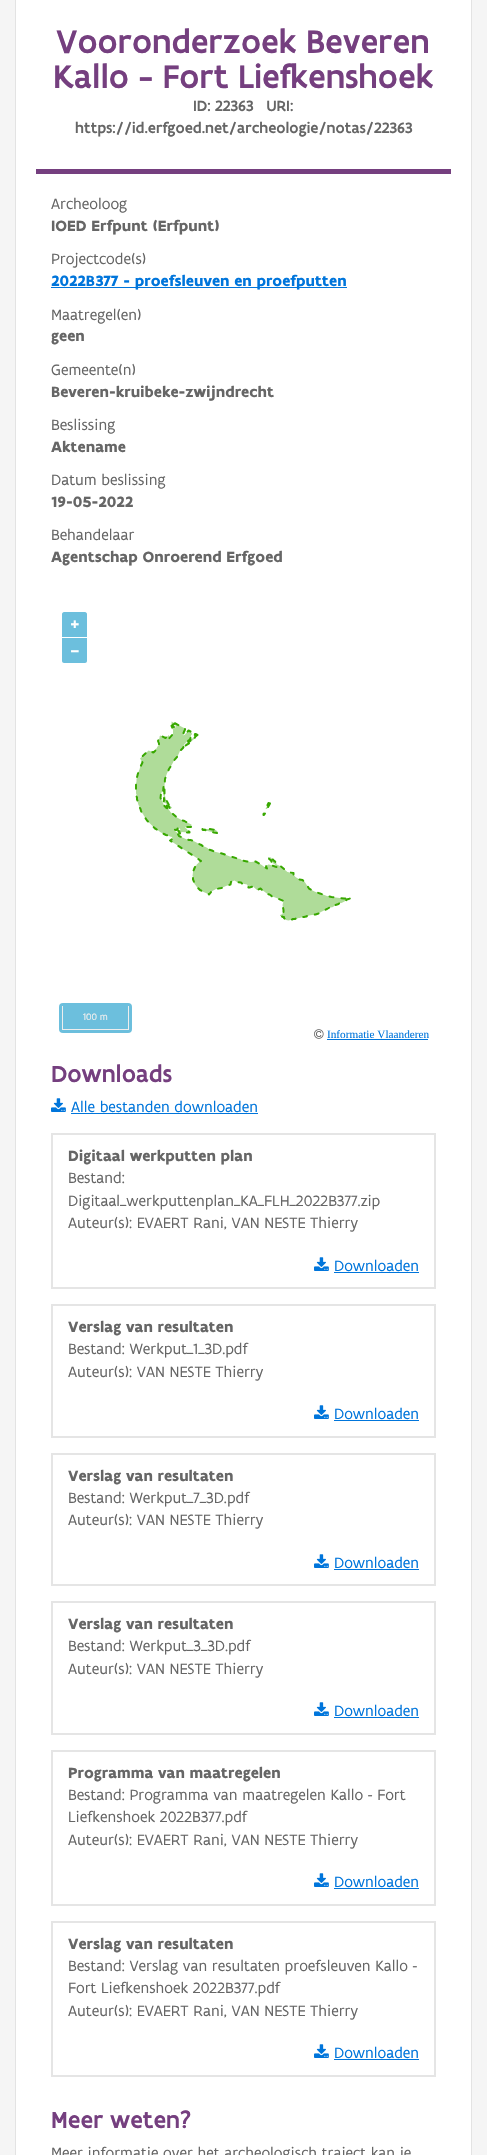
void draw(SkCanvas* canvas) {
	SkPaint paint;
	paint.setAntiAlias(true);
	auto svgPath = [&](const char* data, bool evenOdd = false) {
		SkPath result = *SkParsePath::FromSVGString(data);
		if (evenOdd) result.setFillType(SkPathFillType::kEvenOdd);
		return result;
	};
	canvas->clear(0xfff5f5f5);
	paint.setColor(0xffffffff);
	canvas->drawRect(SkRect::MakeXYWH(16, 0, 455, 2155), paint);
	paint.setColor(0xffe3e3e3);
	canvas->drawPath(svgPath("M472-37V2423L471 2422V-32Z"), paint);
	canvas->drawPath(svgPath("M15 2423V-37L16-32V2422Z"), paint);
	SkFont f1(fontMgr->matchFamilyStyle("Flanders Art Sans", SkFontStyle(500, SkFontStyle::kNormal_Width, SkFontStyle::kUpright_Slant)), 35);
	f1.setSubpixel(true);
	paint.setColor(0xff753f7f);
	canvas->drawString("Vooronderzoek Beveren", 56, 53, f1, paint);
	canvas->drawString("Kallo - Fort Liefkenshoek", 53, 88, f1, paint);
	SkFont f2(fontMgr->matchFamilyStyle("Flanders Art Sans", SkFontStyle(500, SkFontStyle::kNormal_Width, SkFontStyle::kUpright_Slant)), 16);
	f2.setSubpixel(true);
	paint.setColor(0xff666666);
	canvas->drawString("ID: 22363   URI:", 193, 111, f2, paint);
	canvas->drawString("https://id.erfgoed.net/archeologie/notas/22363", 75, 133, f2, paint);
	paint.setColor(0xff753f7f);
	canvas->drawRect(SkRect::MakeXYWH(36, 169, 415, 5), paint);
	SkFont f3(fontMgr->matchFamilyStyle("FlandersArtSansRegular", SkFontStyle::Normal()), 16);
	f3.setSubpixel(true);
	paint.setColor(0xff666666);
	canvas->drawString("Archeoloog", 51, 209, f3, paint);
	SkFont f4(fontMgr->matchFamilyStyle("Flanders Art Sans", SkFontStyle::Bold()), 16);
	f4.setSubpixel(true);
	canvas->drawString("IOED Erfpunt (Erfpunt)", 51, 231, f4, paint);
	canvas->drawString("Projectcode(s)", 51, 264, f3, paint);
	paint.setColor(0xff0075db);
	canvas->drawRect(SkRect::MakeXYWH(51, 287, 296, 1), paint);
	canvas->drawString("2022B377 - proefsleuven en proefputten", 51, 286, f4, paint);
	paint.setColor(0xff666666);
	canvas->drawString("Maatregel(en)", 51, 320, f3, paint);
	canvas->drawString("geen", 51, 341, f4, paint);
	canvas->drawString("Gemeente(n)", 51, 375, f3, paint);
	canvas->drawString("Beveren-kruibeke-zwijndrecht", 51, 397, f4, paint);
	canvas->drawString("Beslissing", 51, 430, f3, paint);
	canvas->drawString("Aktename", 51, 452, f4, paint);
	canvas->drawString("Datum beslissing", 51, 485, f3, paint);
	canvas->drawString("19-05-2022", 51, 507, f4, paint);
	canvas->drawString("Behandelaar", 51, 540, f3, paint);
	canvas->drawString("Agentschap Onroerend Erfgoed", 51, 562, f4, paint);
	paint.setColor(0xff6cbfdd);
	canvas->drawPath(svgPath("M64 612H85C86 612 87 613 87 614V637H62V614C62 613 63 612 64 612Z"), paint);
	SkFont f5(fontMgr->matchFamilyStyle("FlandersArtSansRegular", SkFontStyle::Bold()), 18);
	f5.setSubpixel(true);
	paint.setColor(0xffffffff);
	canvas->drawString("+", 70, 629, f5, paint);
	paint.setColor(0xff6cbfdd);
	canvas->drawPath(svgPath("M62 638H87V661C87 662 86 663 85 663H64C63 663 62 662 62 661Z"), paint);
	paint.setColor(0xffffffff);
	canvas->drawString("−", 70, 656, f5, paint);
	paint.setColor(0xff6cbfdd);
	canvas->drawRoundRect(SkRect::MakeXYWH(59, 1003, 73, 30), 4, 4, paint);
	paint.setColor(0xffeeeeee);
	canvas->drawRect(SkRect::MakeXYWH(128, 1006, 1, 24), paint);
	canvas->drawRect(SkRect::MakeXYWH(62, 1029, 67, 1), paint);
	canvas->drawRect(SkRect::MakeXYWH(62, 1006, 1, 24), paint);
	SkFont f6(fontMgr->matchFamilyStyle("FlandersArtSansRegular", SkFontStyle::Normal()), 10);
	f6.setSubpixel(true);
	canvas->drawString("100 m", 83, 1020, f6, paint);
	canvas->drawImageRect(SkImages::DeferredFromEncodedData(SkData::MakeFromFileName("img1.png")), SkRect::MakeXYWH(314, 1029, 10, 10), SkSamplingOptions());
	SkFont f7(fontMgr->matchFamilyStyle("Liberation Serif", SkFontStyle::Normal()), 11.25);
	f7.setSubpixel(true);
	paint.setColor(0xff0075db);
	canvas->drawString("Informatie Vlaanderen", 327, 1038, f7, paint);
	canvas->drawRect(SkRect::MakeXYWH(327, 1039, 101, 1), paint);
	canvas->drawImageRect(SkImages::DeferredFromEncodedData(SkData::MakeFromFileName("img2.png")), SkRect::MakeXYWH(135, 721, 216, 200), SkSamplingOptions());
	SkFont f8(fontMgr->matchFamilyStyle("Flanders Art Sans", SkFontStyle(500, SkFontStyle::kNormal_Width, SkFontStyle::kUpright_Slant)), 25);
	f8.setSubpixel(true);
	paint.setColor(0xff753f7f);
	canvas->drawString("Downloads", 51, 1082, f8, paint);
	canvas->drawImageRect(SkImages::DeferredFromEncodedData(SkData::MakeFromFileName("img3.png")), SkRect::MakeXYWH(51, 1098, 15, 14), SkSamplingOptions());
	paint.setColor(0xff0075db);
	canvas->drawString("Alle bestanden downloaden", 71, 1112, f3, paint);
	canvas->drawRect(SkRect::MakeXYWH(71, 1113, 187, 1), paint);
	paint.setStroke(true);
	paint.setStrokeWidth(2);
	paint.setColor(0xffe5e5e5);
	canvas->drawRect(SkRect::MakeXYWH(52, 1134, 383, 154), paint);
	paint.setStroke(false);
	paint.setColor(0xff666666);
	canvas->drawString("Digitaal werkputten plan", 68, 1161, f4, paint);
	canvas->drawString("Bestand:", 68, 1183, f3, paint);
	canvas->drawString("Digitaal_werkputtenplan_KA_FLH_2022B377.zip", 68, 1206, f3, paint);
	canvas->drawString("Auteur(s): EVAERT Rani, VAN NESTE Thierry", 68, 1228, f3, paint);
	canvas->drawImageRect(SkImages::DeferredFromEncodedData(SkData::MakeFromFileName("img3.png")), SkRect::MakeXYWH(314, 1257, 15, 14), SkSamplingOptions());
	paint.setColor(0xff0075db);
	canvas->drawString("Downloaden", 334, 1271, f3, paint);
	canvas->drawRect(SkRect::MakeXYWH(334, 1272, 85, 1), paint);
	paint.setStroke(true);
	paint.setColor(0xffe5e5e5);
	canvas->drawRect(SkRect::MakeXYWH(52, 1305, 383, 132), paint);
	paint.setStroke(false);
	paint.setColor(0xff666666);
	canvas->drawString("Verslag van resultaten", 68, 1332, f4, paint);
	canvas->drawString("Bestand: Werkput_1_3D.pdf", 68, 1354, f3, paint);
	canvas->drawString("Auteur(s): VAN NESTE Thierry", 68, 1377, f3, paint);
	canvas->drawImageRect(SkImages::DeferredFromEncodedData(SkData::MakeFromFileName("img3.png")), SkRect::MakeXYWH(314, 1405, 15, 14), SkSamplingOptions());
	paint.setColor(0xff0075db);
	canvas->drawString("Downloaden", 334, 1419, f3, paint);
	canvas->drawRect(SkRect::MakeXYWH(334, 1420, 85, 1), paint);
	paint.setStroke(true);
	paint.setColor(0xffe5e5e5);
	canvas->drawRect(SkRect::MakeXYWH(52, 1454, 383, 131), paint);
	paint.setStroke(false);
	paint.setColor(0xff666666);
	canvas->drawString("Verslag van resultaten", 68, 1481, f4, paint);
	canvas->drawString("Bestand: Werkput_7_3D.pdf", 68, 1503, f3, paint);
	canvas->drawString("Auteur(s): VAN NESTE Thierry", 68, 1525, f3, paint);
	canvas->drawImageRect(SkImages::DeferredFromEncodedData(SkData::MakeFromFileName("img3.png")), SkRect::MakeXYWH(314, 1554, 15, 14), SkSamplingOptions());
	paint.setColor(0xff0075db);
	canvas->drawString("Downloaden", 334, 1568, f3, paint);
	canvas->drawRect(SkRect::MakeXYWH(334, 1569, 85, 1), paint);
	paint.setStroke(true);
	paint.setColor(0xffe5e5e5);
	canvas->drawRect(SkRect::MakeXYWH(52, 1602, 383, 132), paint);
	paint.setStroke(false);
	paint.setColor(0xff666666);
	canvas->drawString("Verslag van resultaten", 68, 1629, f4, paint);
	canvas->drawString("Bestand: Werkput_3_3D.pdf", 68, 1651, f3, paint);
	canvas->drawString("Auteur(s): VAN NESTE Thierry", 68, 1674, f3, paint);
	canvas->drawImageRect(SkImages::DeferredFromEncodedData(SkData::MakeFromFileName("img3.png")), SkRect::MakeXYWH(314, 1702, 15, 14), SkSamplingOptions());
	paint.setColor(0xff0075db);
	canvas->drawString("Downloaden", 334, 1716, f3, paint);
	canvas->drawRect(SkRect::MakeXYWH(334, 1717, 85, 1), paint);
	paint.setStroke(true);
	paint.setColor(0xffe5e5e5);
	canvas->drawRect(SkRect::MakeXYWH(52, 1751, 383, 154), paint);
	paint.setStroke(false);
	paint.setColor(0xff666666);
	canvas->drawString("Programma van maatregelen", 68, 1778, f4, paint);
	canvas->drawString("Bestand: Programma van maatregelen Kallo - Fort", 68, 1800, f3, paint);
	canvas->drawString("Liefkenshoek 2022B377.pdf", 68, 1822, f3, paint);
	canvas->drawString("Auteur(s): EVAERT Rani, VAN NESTE Thierry", 68, 1845, f3, paint);
	canvas->drawImageRect(SkImages::DeferredFromEncodedData(SkData::MakeFromFileName("img3.png")), SkRect::MakeXYWH(314, 1873, 15, 14), SkSamplingOptions());
	paint.setColor(0xff0075db);
	canvas->drawString("Downloaden", 334, 1887, f3, paint);
	canvas->drawRect(SkRect::MakeXYWH(334, 1888, 85, 1), paint);
	paint.setStroke(true);
	paint.setColor(0xffe5e5e5);
	canvas->drawRect(SkRect::MakeXYWH(52, 1922, 383, 154), paint);
	paint.setStroke(false);
	paint.setColor(0xff666666);
	canvas->drawString("Verslag van resultaten", 68, 1949, f4, paint);
	canvas->drawString("Bestand: Verslag van resultaten proefsleuven Kallo -", 68, 1971, f3, paint);
	canvas->drawString("Fort Liefkenshoek 2022B377.pdf", 68, 1993, f3, paint);
	canvas->drawString("Auteur(s): EVAERT Rani, VAN NESTE Thierry", 68, 2016, f3, paint);
	canvas->drawImageRect(SkImages::DeferredFromEncodedData(SkData::MakeFromFileName("img3.png")), SkRect::MakeXYWH(314, 2044, 15, 14), SkSamplingOptions());
	paint.setColor(0xff0075db);
	canvas->drawString("Downloaden", 334, 2058, f3, paint);
	canvas->drawRect(SkRect::MakeXYWH(334, 2059, 85, 1), paint);
	paint.setColor(0xff753f7f);
	canvas->drawString("Meer weten?", 51, 2128, f8, paint);
	paint.setColor(0xff666666);
	canvas->drawString("Meer informatie over het archeologisch traject kan je", 51, 2158, f3, paint);
}
